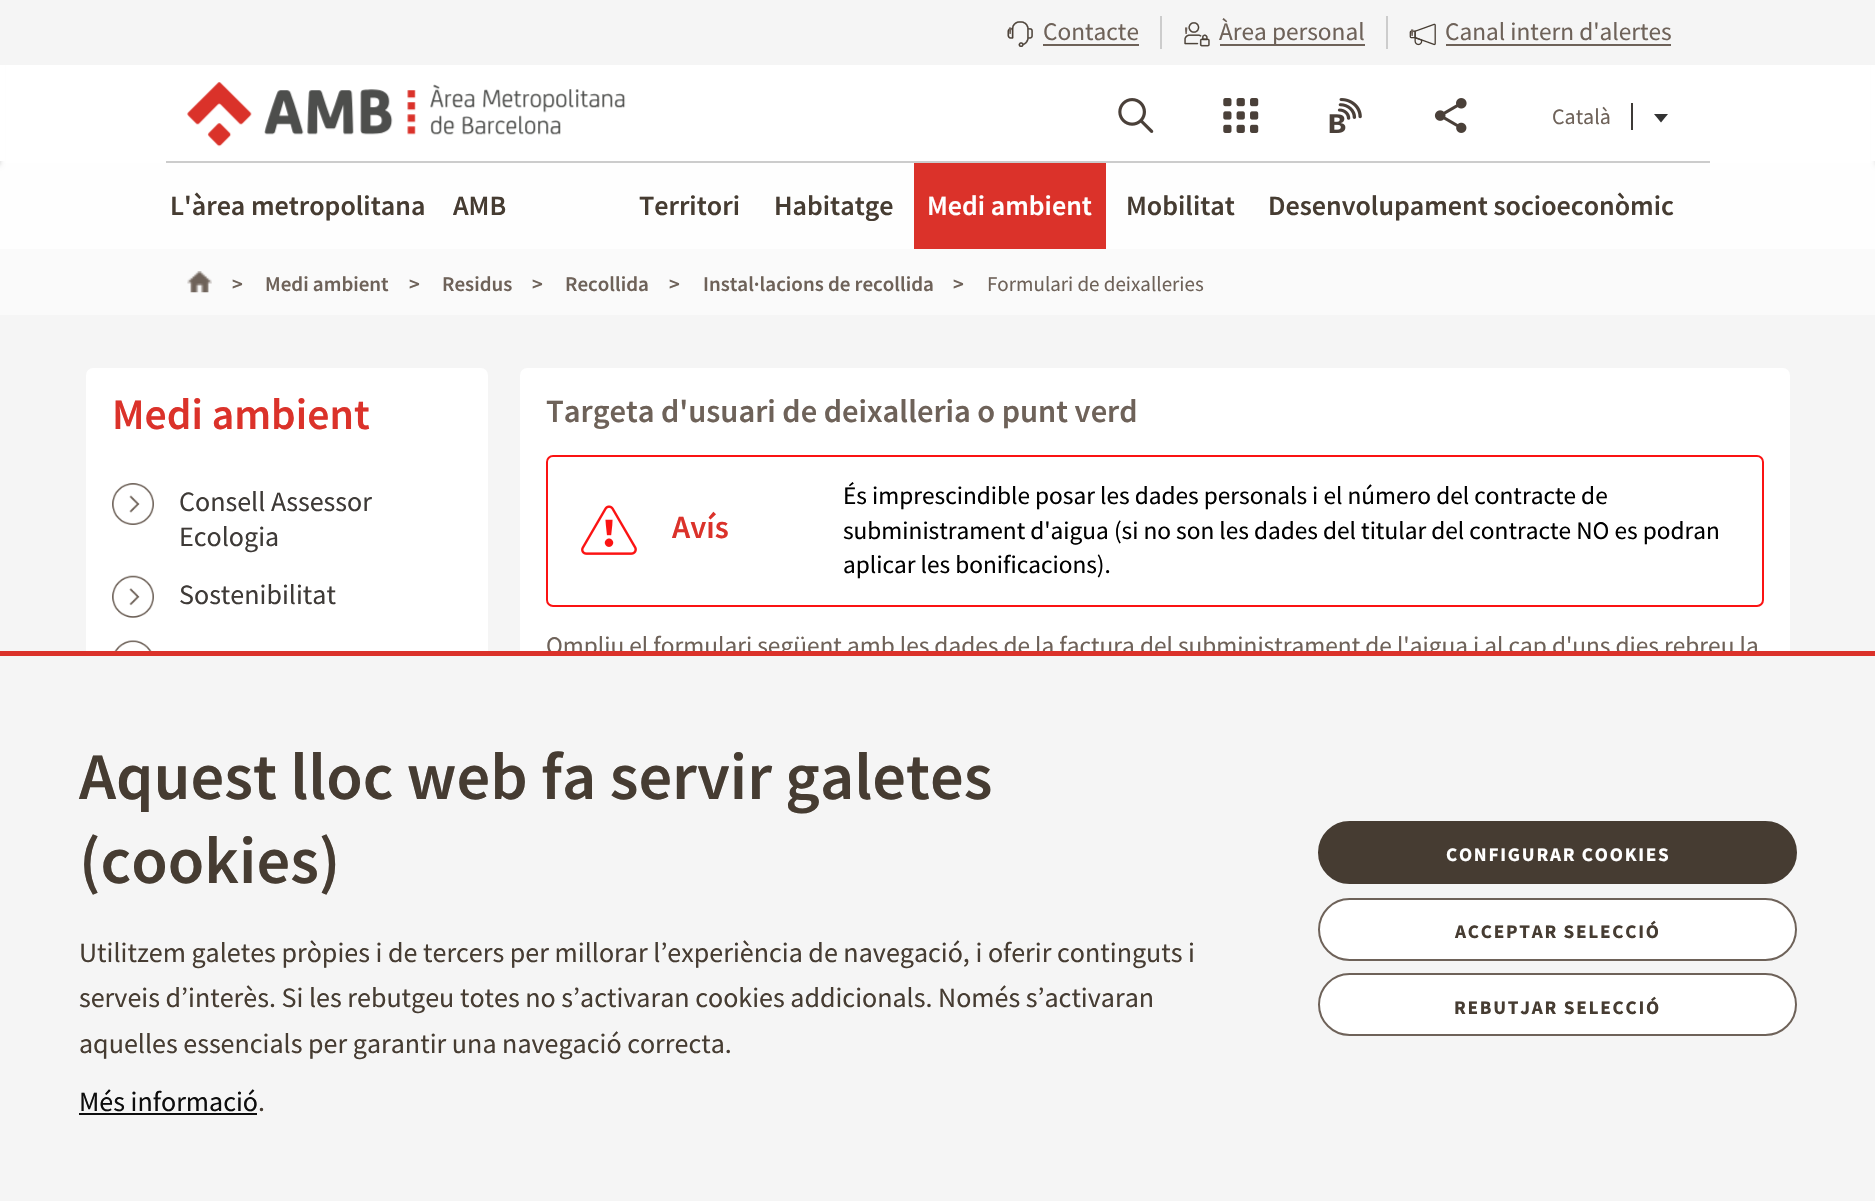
void draw(SkCanvas* canvas) {
	SkPaint paint;
	paint.setAntiAlias(true);
	auto spacedText = [&](const char* s, float x, float y, const SkFont& font, const SkPaint& ink, float letter, float word) {
		std::vector<SkGlyphID> glyphs(font.countText(s, strlen(s), SkTextEncoding::kUTF8));
		std::vector<float> xs(glyphs.size());
		font.textToGlyphs(s, strlen(s), SkTextEncoding::kUTF8, glyphs);
		font.getXPos(glyphs, xs, x);
		float extra = 0;
		for (size_t i = 0; i < glyphs.size(); i++) {
			xs[i] += extra;
			extra += letter + word * (glyphs[i] == font.unicharToGlyph(' '));
		}
		canvas->drawTextBlob(SkTextBlob::MakeFromPosHGlyphs(glyphs, xs, y, font), 0, 0, ink);
	};
	auto svgPath = [&](const char* data, bool evenOdd = false) {
		SkPath result = *SkParsePath::FromSVGString(data);
		if (evenOdd) result.setFillType(SkPathFillType::kEvenOdd);
		return result;
	};
	canvas->clear(0xfff5f5f5);
	paint.setColor(0xffffffff);
	canvas->drawRect(SkRect::MakeXYWH(0, 65, 1875, 98), paint);
	paint.setColor(0xfffefefe);
	canvas->drawRect(SkRect::MakeXYWH(0, 163, 1875, 86), paint);
	paint.setColor(0xffcccccc);
	paint.setMaskFilter(SkMaskFilter::MakeBlur(kNormal_SkBlurStyle, 2.5));
	canvas->drawRect(SkRect::MakeXYWH(-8, 2, 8, 163), paint);
	paint.setMaskFilter(nullptr);
	paint.setColor(0xffffffff);
	canvas->drawPath(svgPath("M-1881-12V161H-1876V0H0V161H5V-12Z"), paint);
	paint.setColor(0xffcccccc);
	paint.setMaskFilter(SkMaskFilter::MakeBlur(kNormal_SkBlurStyle, 2.5));
	canvas->drawRect(SkRect::MakeXYWH(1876, 2, 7, 163), paint);
	paint.setMaskFilter(nullptr);
	paint.setColor(0xffffffff);
	canvas->drawPath(svgPath("M1871-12V161H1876V0H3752V161H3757V-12Z"), paint);
	paint.setColor(0xfff5f5f5);
	canvas->drawRect(SkRect::MakeXYWH(0, 0, 1875, 65), paint);
	paint.setColor(0xffcccccc);
	canvas->drawRect(SkRect::MakeXYWH(1160, 16, 2, 33), paint);
	canvas->drawImageRect(SkImages::DeferredFromEncodedData(SkData::MakeFromFileName("img1.png")), SkRect::MakeXYWH(1007, 21, 26, 26), SkSamplingOptions());
	SkFont f1(fontMgr->matchFamilyStyle("Source Sans Pro", SkFontStyle::Normal()), 25.3);
	f1.setSubpixel(true);
	paint.setColor(0xff6e6259);
	canvas->drawString("'", 1007, 45, f1, paint);
	canvas->drawString("Contacte", 1043, 40, f1, paint);
	canvas->drawRect(SkRect::MakeXYWH(1043, 44, 96, 2), paint);
	paint.setColor(0xffcccccc);
	canvas->drawRect(SkRect::MakeXYWH(1386, 16, 2, 33), paint);
	canvas->drawImageRect(SkImages::DeferredFromEncodedData(SkData::MakeFromFileName("img2.png")), SkRect::MakeXYWH(1184, 22, 26, 25), SkSamplingOptions());
	paint.setColor(0xff6e6259);
	canvas->drawString("'", 1183, 45, f1, paint);
	canvas->drawRect(SkRect::MakeXYWH(1220, 44, 145, 2), paint);
	canvas->drawString("Àrea personal", 1219, 40, f1, paint);
	canvas->drawImageRect(SkImages::DeferredFromEncodedData(SkData::MakeFromFileName("img3.png")), SkRect::MakeXYWH(1409, 23, 27, 23), SkSamplingOptions());
	canvas->drawString("'", 1409, 47, f1, paint);
	canvas->drawString("Canal intern d'alertes", 1445, 40, f1, paint);
	canvas->drawRect(SkRect::MakeXYWH(1446, 44, 225, 2), paint);
	paint.setColor(0xffcccccc);
	canvas->drawRect(SkRect::MakeXYWH(166, 161, 1544, 2), paint);
	canvas->drawImageRect(SkImages::DeferredFromEncodedData(SkData::MakeFromFileName("img4.png")), SkRect::MakeXYWH(187, 82, 439, 65), SkSamplingOptions());
	canvas->drawImageRect(SkImages::DeferredFromEncodedData(SkData::MakeFromFileName("img5.png")), SkRect::MakeXYWH(1118, 98, 36, 35), SkSamplingOptions());
	canvas->drawImageRect(SkImages::DeferredFromEncodedData(SkData::MakeFromFileName("img6.png")), SkRect::MakeXYWH(1223, 98, 36, 35), SkSamplingOptions());
	canvas->drawImageRect(SkImages::DeferredFromEncodedData(SkData::MakeFromFileName("img7.png")), SkRect::MakeXYWH(1329, 98, 33, 35), SkSamplingOptions());
	canvas->drawImageRect(SkImages::DeferredFromEncodedData(SkData::MakeFromFileName("img8.png")), SkRect::MakeXYWH(1434, 98, 33, 35), SkSamplingOptions());
	SkFont f2(fontMgr->matchFamilyStyle("Source Sans Pro", SkFontStyle::Normal()), 22);
	f2.setSubpixel(true);
	paint.setColor(0xff6e6259);
	canvas->drawString("Català", 1552, 124, f2, paint);
	paint.setColor(0xff3e3a37);
	canvas->drawRect(SkRect::MakeXYWH(1631, 103, 2, 27), paint);
	paint.setColor(0xff333333);
	canvas->drawPath(svgPath("M1654 114H1668L1661 122.5Z"), paint);
	SkFont f3(fontMgr->matchFamilyStyle("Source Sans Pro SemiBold", SkFontStyle(600, SkFontStyle::kNormal_Width, SkFontStyle::kUpright_Slant)), 28);
	f3.setSubpixel(true);
	paint.setColor(0xff463c32);
	canvas->drawString("L'àrea metropolitana", 170, 215, f3, paint);
	canvas->drawString("AMB", 453, 215, f3, paint);
	canvas->drawString("Territori", 639, 215, f3, paint);
	canvas->drawString("Habitatge", 774, 215, f3, paint);
	paint.setColor(0xffdb322a);
	canvas->drawRect(SkRect::MakeXYWH(914, 163, 192, 86), paint);
	paint.setColor(0xffffffff);
	canvas->drawString("Medi ambient", 927, 215, f3, paint);
	paint.setColor(0xff463c32);
	canvas->drawString("Mobilitat", 1126, 215, f3, paint);
	canvas->drawString("Desenvolupament socioeconòmic", 1268, 215, f3, paint);
	paint.setColor(0xfffafafa);
	canvas->drawRect(SkRect::MakeXYWH(0, 249, 1875, 66), paint);
	canvas->drawImageRect(SkImages::DeferredFromEncodedData(SkData::MakeFromFileName("img9.png")), SkRect::MakeXYWH(187, 271, 25, 22), SkSamplingOptions());
	SkFont f4(fontMgr->matchFamilyStyle("Source Sans Pro SemiBold", SkFontStyle(600, SkFontStyle::kNormal_Width, SkFontStyle::kUpright_Slant)), 21);
	f4.setSubpixel(true);
	paint.setColor(0xff6e6259);
	canvas->drawString(">", 232, 291, f4, paint);
	canvas->drawString("Medi ambient", 265, 291, f4, paint);
	canvas->drawString(">", 409, 291, f4, paint);
	canvas->drawString("Residus", 442, 291, f4, paint);
	canvas->drawString(">", 532, 291, f4, paint);
	canvas->drawString("Recollida", 565, 291, f4, paint);
	canvas->drawString(">", 669, 291, f4, paint);
	canvas->drawString("Instal·lacions de recollida", 703, 291, f4, paint);
	canvas->drawString(">", 953, 291, f4, paint);
	SkFont f5(fontMgr->matchFamilyStyle("Source Sans Pro", SkFontStyle::Normal()), 21);
	f5.setSubpixel(true);
	canvas->drawString("Formulari de deixalleries", 987, 291, f5, paint);
	paint.setColor(0xffffffff);
	canvas->drawRoundRect(SkRect::MakeXYWH(86, 368, 402, 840), 7, 7, paint);
	SkFont f6(fontMgr->matchFamilyStyle("Source Sans Pro SemiBold", SkFontStyle(600, SkFontStyle::kNormal_Width, SkFontStyle::kUpright_Slant)), 43.75);
	f6.setSubpixel(true);
	paint.setColor(0xffdb322a);
	canvas->drawString("Medi ambient", 112, 429, f6, paint);
	canvas->drawImageRect(SkImages::DeferredFromEncodedData(SkData::MakeFromFileName("img10.png")), SkRect::MakeXYWH(112, 483, 42, 42), SkSamplingOptions());
	SkFont f7(fontMgr->matchFamilyStyle("Source Sans Pro", SkFontStyle::Normal()), 28);
	f7.setSubpixel(true);
	paint.setColor(0xff3e3a37);
	canvas->drawString("Consell Assessor", 179, 511, f7, paint);
	canvas->drawString("Ecologia", 179, 546, f7, paint);
	canvas->drawImageRect(SkImages::DeferredFromEncodedData(SkData::MakeFromFileName("img11.png")), SkRect::MakeXYWH(112, 575, 42, 43), SkSamplingOptions());
	canvas->drawString("Sostenibilitat", 179, 604, f7, paint);
	canvas->drawImageRect(SkImages::DeferredFromEncodedData(SkData::MakeFromFileName("img12.png")), SkRect::MakeXYWH(114, 640, 38, 11), SkSamplingOptions());
	paint.setColor(0xffffffff);
	canvas->drawRoundRect(SkRect::MakeXYWH(520, 368, 1270, 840), 7, 7, paint);
	SkFont f8(fontMgr->matchFamilyStyle("Source Sans Pro SemiBold", SkFontStyle(600, SkFontStyle::kNormal_Width, SkFontStyle::kUpright_Slant)), 32.5);
	f8.setSubpixel(true);
	paint.setColor(0xff6e6259);
	canvas->drawString("Targeta d'usuari de deixalleria o punt verd", 546, 422, f8, paint);
	paint.setStroke(true);
	paint.setStrokeWidth(2);
	paint.setColor(0xfffb1313);
	canvas->drawRoundRect(SkRect::MakeXYWH(547, 456, 1216, 150), 6, 6, paint);
	paint.setStroke(false);
	paint.setColor(0xff000000);
	canvas->drawString("És imprescindible posar les dades personals i el número del contracte de", 843, 504, f1, paint);
	canvas->drawImageRect(SkImages::DeferredFromEncodedData(SkData::MakeFromFileName("img13.png")), SkRect::MakeXYWH(581, 505, 56, 50), SkSamplingOptions());
	paint.setColor(0xffdb322a);
	canvas->drawString("Avís", 672, 538, f8, paint);
	paint.setColor(0xff000000);
	canvas->drawString("subministrament d'aigua (si no son les dades del titular del contracte NO es podran", 843, 539, f1, paint);
	canvas->drawString("aplicar les bonificacions).", 843, 573, f1, paint);
	paint.setColor(0xff6e6259);
	canvas->drawString("Ompliu el formulari següent amb les dades de la factura del subministrament de l'aigua i al cap d'uns dies rebreu la", 546, 654, f1, paint);
	paint.setColor(0xfff5f5f5);
	canvas->drawRect(SkRect::MakeXYWH(86, 656, 1704, 545), paint);
	paint.setColor(0xffdb322a);
	canvas->drawRect(SkRect::MakeXYWH(0, 651, 1875, 5), paint);
	SkFont f9(fontMgr->matchFamilyStyle("Source Sans Pro SemiBold", SkFontStyle(600, SkFontStyle::kNormal_Width, SkFontStyle::kUpright_Slant)), 66.5);
	f9.setSubpixel(true);
	paint.setColor(0xff463c32);
	canvas->drawString("Aquest lloc web fa servir galetes", 79, 799, f9, paint);
	canvas->drawString("(cookies)", 79, 883, f9, paint);
	canvas->drawString("Utilitzem galetes pròpies i de tercers per millorar l’experiència de navegació, i oferir continguts i", 79, 962, f7, paint);
	canvas->drawString("serveis d’interès. Si les rebutgeu totes no s’activaran cookies addicionals. Només s’activaran", 79, 1007, f7, paint);
	canvas->drawString("aquelles essencials per garantir una navegació correcta.", 79, 1053, f7, paint);
	paint.setColor(0xff0e0e0e);
	canvas->drawString("Més informació", 79, 1111, f7, paint);
	canvas->drawRect(SkRect::MakeXYWH(79, 1113, 178, 2), paint);
	paint.setColor(0xff463c32);
	canvas->drawString(".", 258, 1111, f7, paint);
	canvas->drawRoundRect(SkRect::MakeXYWH(1319, 822, 477, 61), 30.5, 30.5, paint);
	paint.setStroke(true);
	canvas->drawRoundRect(SkRect::MakeXYWH(1319, 822, 477, 61), 30.5, 30.5, paint);
	SkFont f10(fontMgr->matchFamilyStyle("Source Sans Pro", SkFontStyle::Bold()), 19.25);
	f10.setSubpixel(true);
	paint.setStroke(false);
	paint.setColor(0xffffffff);
	spacedText("CONFIGURAR COOKIES", 1446, 861, f10, paint, 1.75, 0);
	canvas->drawRoundRect(SkRect::MakeXYWH(1319, 899, 477, 61), 30.5, 30.5, paint);
	paint.setStroke(true);
	paint.setColor(0xff6e6259);
	canvas->drawRoundRect(SkRect::MakeXYWH(1319, 899, 477, 61), 30.5, 30.5, paint);
	paint.setStroke(false);
	paint.setColor(0xff463c32);
	spacedText("ACCEPTAR SELECCIÓ", 1455, 938, f10, paint, 1.75, 0);
	paint.setColor(0xffffffff);
	canvas->drawRoundRect(SkRect::MakeXYWH(1319, 974, 477, 61), 30.5, 30.5, paint);
	paint.setStroke(true);
	paint.setColor(0xff6e6259);
	canvas->drawRoundRect(SkRect::MakeXYWH(1319, 974, 477, 61), 30.5, 30.5, paint);
	paint.setStroke(false);
	paint.setColor(0xff463c32);
	spacedText("REBUTJAR SELECCIÓ", 1454, 1014, f10, paint, 1.75, 0);
}
